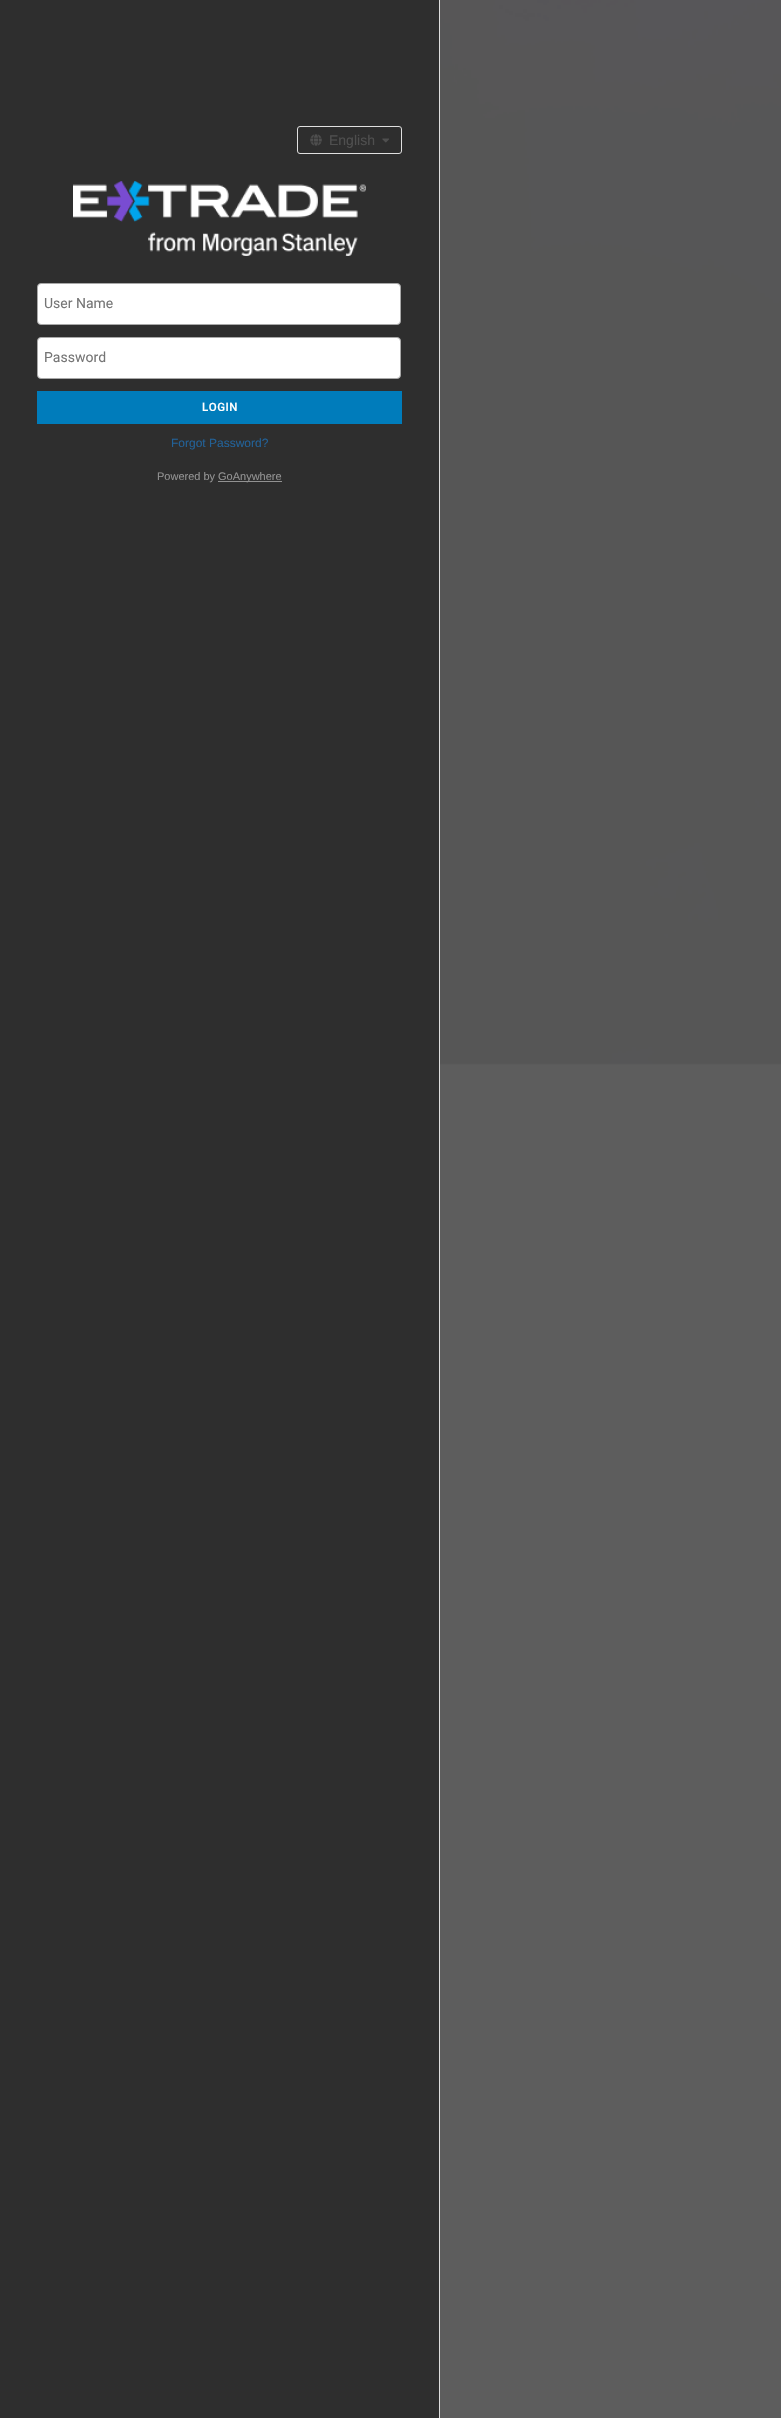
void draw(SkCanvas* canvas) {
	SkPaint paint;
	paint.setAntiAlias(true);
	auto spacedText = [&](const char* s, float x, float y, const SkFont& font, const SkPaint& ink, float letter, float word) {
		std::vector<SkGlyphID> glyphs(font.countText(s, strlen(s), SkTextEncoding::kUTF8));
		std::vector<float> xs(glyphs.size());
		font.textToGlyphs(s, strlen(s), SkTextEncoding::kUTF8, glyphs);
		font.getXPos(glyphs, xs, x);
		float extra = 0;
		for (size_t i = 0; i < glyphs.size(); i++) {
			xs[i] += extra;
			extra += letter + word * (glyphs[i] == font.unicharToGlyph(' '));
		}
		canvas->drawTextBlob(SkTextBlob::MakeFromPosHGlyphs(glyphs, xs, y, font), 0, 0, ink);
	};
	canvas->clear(0xffffffff);
	paint.setColor(0xff2e2e2e);
	canvas->drawRect(SkRect::MakeXYWH(0, 0, 439, 2418), paint);
	paint.setColor(0xffdddddd);
	canvas->drawRect(SkRect::MakeXYWH(439, 0, 1, 2418), paint);
	paint.setStroke(true);
	paint.setStrokeWidth(1);
	paint.setColor(0xffe0e0e0);
	canvas->drawRoundRect(SkRect::MakeXYWH(297.5, 126.5, 104, 27), 2.5, 2.5, paint);
	canvas->drawImageRect(SkImages::DeferredFromEncodedData(SkData::MakeFromFileName("img1.png")), SkRect::MakeXYWH(310, 134, 12, 12), SkSamplingOptions());
	SkFont f1(fontMgr->matchFamilyStyle("Liberation Sans", SkFontStyle::Normal()), 14);
	f1.setSubpixel(true);
	paint.setStroke(false);
	paint.setColor(0xff4f4f4f);
	canvas->drawString("English", 329, 145, f1, paint);
	canvas->drawImageRect(SkImages::DeferredFromEncodedData(SkData::MakeFromFileName("img2.png")), SkRect::MakeXYWH(382, 138, 7, 5), SkSamplingOptions());
	canvas->drawImageRect(SkImages::DeferredFromEncodedData(SkData::MakeFromFileName("img3.png")), SkRect::MakeXYWH(73, 181, 293, 75), SkSamplingOptions());
	paint.setColor(0xffffffff);
	canvas->drawRoundRect(SkRect::MakeXYWH(37.5, 283.5, 363, 41), 3.5, 3.5, paint);
	paint.setStroke(true);
	paint.setColor(0xffa8a8a8);
	canvas->drawRoundRect(SkRect::MakeXYWH(37.5, 283.5, 363, 41), 3.5, 3.5, paint);
	SkFont f2(fontMgr->matchFamilyStyle("Roboto", SkFontStyle::Normal()), 14);
	f2.setSubpixel(true);
	paint.setStroke(false);
	paint.setColor(0xff757575);
	canvas->drawString("User Name", 44, 308, f2, paint);
	paint.setColor(0xffffffff);
	canvas->drawRoundRect(SkRect::MakeXYWH(37.5, 337.5, 363, 41), 3.5, 3.5, paint);
	paint.setStroke(true);
	paint.setColor(0xffa8a8a8);
	canvas->drawRoundRect(SkRect::MakeXYWH(37.5, 337.5, 363, 41), 3.5, 3.5, paint);
	paint.setStroke(false);
	paint.setColor(0xff757575);
	canvas->drawString("Password", 44, 362, f2, paint);
	paint.setColor(0xff007cbb);
	canvas->drawRect(SkRect::MakeXYWH(37, 391, 365, 33), paint);
	SkFont f3(fontMgr->matchFamilyStyle("Roboto", SkFontStyle(500, SkFontStyle::kNormal_Width, SkFontStyle::kUpright_Slant)), 11.5);
	f3.setSubpixel(true);
	paint.setColor(0xffffffff);
	spacedText("LOGIN", 202, 411, f3, paint, 0.5, 0);
	SkFont f4(fontMgr->matchFamilyStyle("Liberation Sans", SkFontStyle::Normal()), 12);
	f4.setSubpixel(true);
	paint.setColor(0xff226197);
	canvas->drawString("Forgot Password?", 171, 447, f4, paint);
	SkFont f5(fontMgr->matchFamilyStyle("Liberation Sans", SkFontStyle::Normal()), 11);
	f5.setSubpixel(true);
	paint.setColor(0xff929292);
	canvas->drawString("Powered by", 157, 480, f5, paint);
	canvas->drawRect(SkRect::MakeXYWH(218, 481, 64, 1), paint);
	canvas->drawString("GoAnywhere", 218, 480, f5, paint);
	canvas->drawImageRect(SkImages::DeferredFromEncodedData(SkData::MakeFromFileName("img4.png")), SkRect::MakeXYWH(440, 0, 341, 2418), SkSamplingOptions());
}
